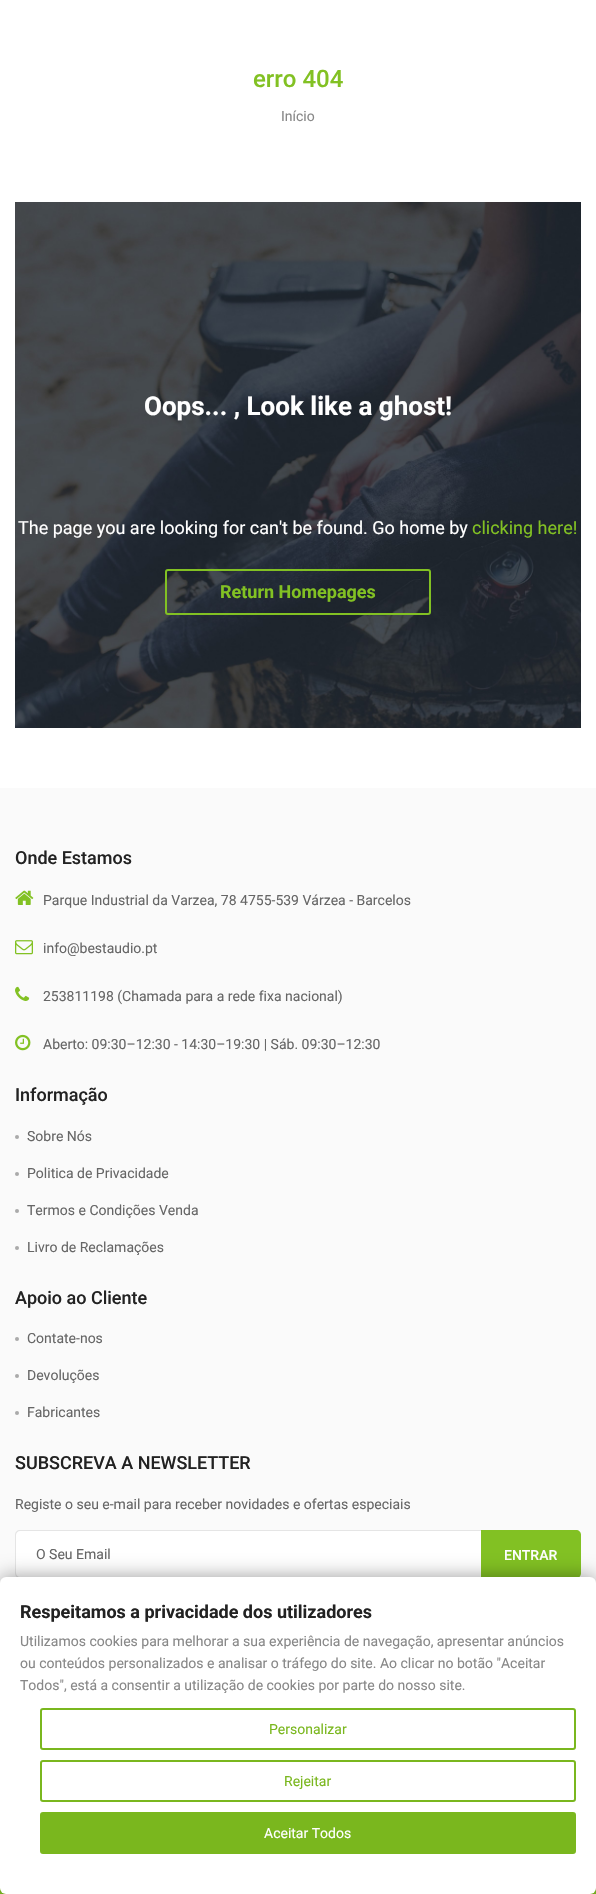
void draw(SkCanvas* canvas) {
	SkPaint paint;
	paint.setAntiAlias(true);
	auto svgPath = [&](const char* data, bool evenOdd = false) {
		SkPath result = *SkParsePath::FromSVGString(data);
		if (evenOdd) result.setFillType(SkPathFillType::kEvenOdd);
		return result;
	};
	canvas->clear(0xffffffff);
	SkFont f1(fontMgr->matchFamilyStyle("Roboto", SkFontStyle(500, SkFontStyle::kNormal_Width, SkFontStyle::kUpright_Slant)), 24);
	f1.setSubpixel(true);
	paint.setColor(0xff82c123);
	canvas->drawString("erro 404", 253, 87, f1, paint);
	SkFont f2(fontMgr->matchFamilyStyle("Roboto", SkFontStyle::Normal()), 14);
	f2.setSubpixel(true);
	paint.setColor(0xff888888);
	canvas->drawString("Início", 281, 121, f2, paint);
	canvas->drawImageRect(SkImages::DeferredFromEncodedData(SkData::MakeFromFileName("img1.png")), SkRect::MakeXYWH(15, 202, 566, 526), SkSamplingOptions());
	SkFont f3(fontMgr->matchFamilyStyle("Roboto", SkFontStyle::Bold()), 26);
	f3.setSubpixel(true);
	paint.setColor(0xffffffff);
	canvas->drawString("Oops... , Look like a ghost!", 144, 415, f3, paint);
	SkFont f4(fontMgr->matchFamilyStyle("Roboto", SkFontStyle::Normal()), 18);
	f4.setSubpixel(true);
	canvas->drawString("The page you are looking for can't be found. Go home by", 18, 534, f4, paint);
	paint.setColor(0xff82c123);
	canvas->drawString("clicking here!", 472, 534, f4, paint);
	paint.setStroke(true);
	paint.setStrokeWidth(2);
	canvas->drawRoundRect(SkRect::MakeXYWH(166, 570, 264, 44), 2, 2, paint);
	SkFont f5(fontMgr->matchFamilyStyle("Roboto", SkFontStyle::Bold()), 18);
	f5.setSubpixel(true);
	paint.setStroke(false);
	canvas->drawString("Return Homepages", 220, 598, f5, paint);
	paint.setColor(0xfffafafa);
	canvas->drawRect(SkRect::MakeXYWH(0, 788, 596, 795), paint);
	SkFont f6(fontMgr->matchFamilyStyle("Roboto", SkFontStyle(500, SkFontStyle::kNormal_Width, SkFontStyle::kUpright_Slant)), 18);
	f6.setSubpixel(true);
	paint.setColor(0xff222222);
	canvas->drawString("Onde Estamos", 15, 864, f6, paint);
	canvas->drawImageRect(SkImages::DeferredFromEncodedData(SkData::MakeFromFileName("img2.png")), SkRect::MakeXYWH(15, 890, 19, 15), SkSamplingOptions());
	paint.setColor(0xff666666);
	canvas->drawString("Parque Industrial da Varzea, 78 4755-539 Várzea - Barcelos", 43, 905, f2, paint);
	canvas->drawImageRect(SkImages::DeferredFromEncodedData(SkData::MakeFromFileName("img3.png")), SkRect::MakeXYWH(15, 940, 18, 15), SkSamplingOptions());
	canvas->drawString("info@bestaudio.pt", 43, 953, f2, paint);
	canvas->drawImageRect(SkImages::DeferredFromEncodedData(SkData::MakeFromFileName("img4.png")), SkRect::MakeXYWH(15, 986, 15, 15), SkSamplingOptions());
	canvas->drawString("253811198 (Chamada para a rede fixa nacional)", 43, 1001, f2, paint);
	canvas->drawImageRect(SkImages::DeferredFromEncodedData(SkData::MakeFromFileName("img5.png")), SkRect::MakeXYWH(15, 1034, 16, 17), SkSamplingOptions());
	canvas->drawString("Aberto: 09:30–12:30 - 14:30–19:30 | Sáb. 09:30–12:30", 43, 1049, f2, paint);
	paint.setColor(0xff222222);
	canvas->drawString("Informação", 15, 1101, f6, paint);
	paint.setColor(0xffaaaaaa);
	canvas->drawCircle(17, 1137, 2, paint);
	paint.setColor(0xff666666);
	canvas->drawString("Sobre Nós", 27, 1141, f2, paint);
	paint.setColor(0xffaaaaaa);
	canvas->drawCircle(17, 1174, 2, paint);
	paint.setColor(0xff666666);
	canvas->drawString("Politica de Privacidade", 27, 1178, f2, paint);
	paint.setColor(0xffaaaaaa);
	canvas->drawCircle(17, 1211, 2, paint);
	paint.setColor(0xff666666);
	canvas->drawString("Termos e Condições Venda", 27, 1215, f2, paint);
	paint.setColor(0xffaaaaaa);
	canvas->drawCircle(17, 1248, 2, paint);
	paint.setColor(0xff666666);
	canvas->drawString("Livro de Reclamações", 27, 1252, f2, paint);
	paint.setColor(0xff222222);
	canvas->drawString("Apoio ao Cliente", 15, 1304, f6, paint);
	paint.setColor(0xffaaaaaa);
	canvas->drawCircle(17, 1339, 2, paint);
	paint.setColor(0xff666666);
	canvas->drawString("Contate-nos", 27, 1343, f2, paint);
	paint.setColor(0xffaaaaaa);
	canvas->drawCircle(17, 1376, 2, paint);
	paint.setColor(0xff666666);
	canvas->drawString("Devoluções", 27, 1380, f2, paint);
	paint.setColor(0xffaaaaaa);
	canvas->drawCircle(17, 1413, 2, paint);
	paint.setColor(0xff666666);
	canvas->drawString("Fabricantes", 27, 1417, f2, paint);
	paint.setColor(0xff222222);
	canvas->drawString("SUBSCREVA A NEWSLETTER", 15, 1469, f6, paint);
	paint.setColor(0xff666666);
	canvas->drawString("Registe o seu e-mail para receber novidades e ofertas especiais", 15, 1509, f2, paint);
	paint.setColor(0xffffffff);
	canvas->drawPath(svgPath("M20 1530H481V1578H20C17 1578 15 1576 15 1573V1535C15 1532 17 1530 20 1530Z"), paint);
	paint.setColor(0xffe5e5e5);
	canvas->drawPath(svgPath("M20 1530H481V1578H20C17 1578 15 1576 15 1573V1535C15 1532 17 1530 20 1530ZM20 1531H481V1577H20C18 1577 16 1575 16 1573V1535C16 1533 18 1531 20 1531Z", true), paint);
	paint.setColor(0xff666666);
	canvas->drawString("O Seu Email", 36, 1559, f2, paint);
	paint.setColor(0xff82c123);
	canvas->drawPath(svgPath("M481 1530H576C579 1530 581 1532 581 1535V1573C581 1576 579 1578 576 1578H481Z"), paint);
	SkFont f7(fontMgr->matchFamilyStyle("Roboto", SkFontStyle(500, SkFontStyle::kNormal_Width, SkFontStyle::kUpright_Slant)), 14);
	f7.setSubpixel(true);
	paint.setColor(0xffffffff);
	canvas->drawString("ENTRAR", 504, 1560, f7, paint);
	paint.setColor(0xff82c123);
	canvas->drawRect(SkRect::MakeXYWH(0, 1888, 596, 6), paint);
	paint.setColor(0x66000000);
	paint.setMaskFilter(SkMaskFilter::MakeBlur(kNormal_SkBlurStyle, 10));
	canvas->drawRoundRect(SkRect::MakeXYWH(0, 1577, 596, 317), 6, 6, paint);
	paint.setMaskFilter(nullptr);
	paint.setColor(0xffffffff);
	canvas->drawRoundRect(SkRect::MakeXYWH(0, 1577, 596, 317), 6, 6, paint);
	paint.setColor(0xff222222);
	canvas->drawString("Respeitamos a privacidade dos utilizadores", 20, 1618, f5, paint);
	paint.setColor(0xff888888);
	canvas->drawString("Utilizamos cookies para melhorar a sua experiência de navegação, apresentar anúncios", 20, 1646, f2, paint);
	canvas->drawString("ou conteúdos personalizados e analisar o tráfego do site. Ao clicar no botão \"Aceitar", 20, 1668, f2, paint);
	canvas->drawString("Todos\", está a consentir a utilização de cookies por parte do nosso site.", 20, 1690, f2, paint);
	paint.setStroke(true);
	paint.setColor(0xff7ab71e);
	canvas->drawRoundRect(SkRect::MakeXYWH(41, 1709, 534, 40), 2, 2, paint);
	paint.setStroke(false);
	canvas->drawString("Personalizar", 269, 1734, f2, paint);
	paint.setStroke(true);
	canvas->drawRoundRect(SkRect::MakeXYWH(41, 1761, 534, 40), 2, 2, paint);
	paint.setStroke(false);
	canvas->drawString("Rejeitar", 284, 1786, f2, paint);
	canvas->drawRoundRect(SkRect::MakeXYWH(41, 1813, 534, 40), 2, 2, paint);
	paint.setStroke(true);
	canvas->drawRoundRect(SkRect::MakeXYWH(41, 1813, 534, 40), 2, 2, paint);
	paint.setStroke(false);
	paint.setColor(0xffffffff);
	canvas->drawString("Aceitar Todos", 264, 1838, f2, paint);
}
